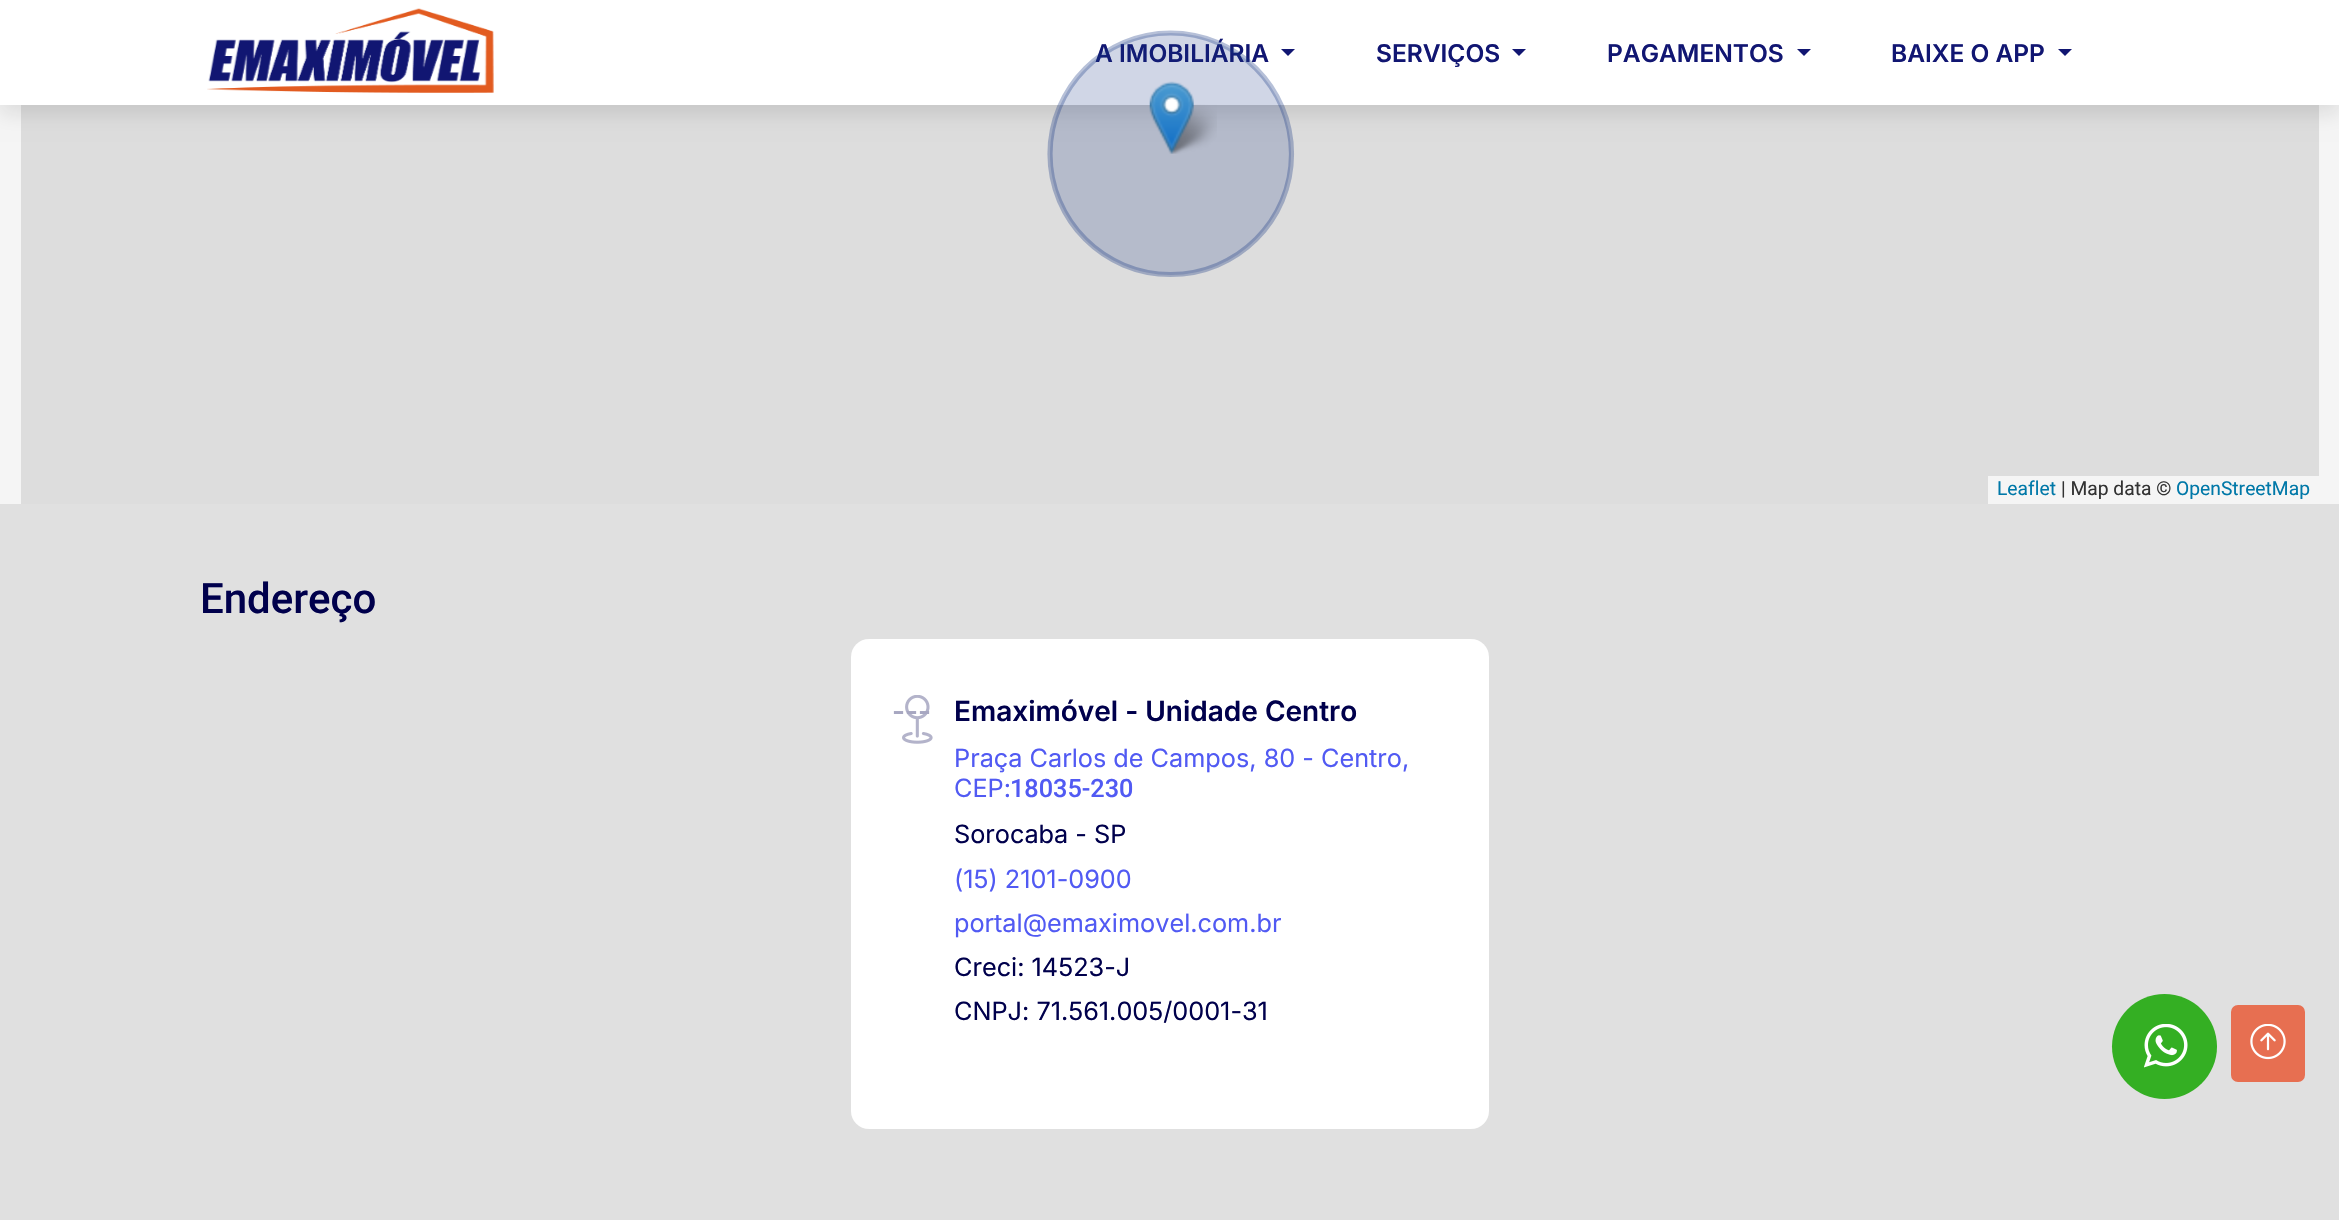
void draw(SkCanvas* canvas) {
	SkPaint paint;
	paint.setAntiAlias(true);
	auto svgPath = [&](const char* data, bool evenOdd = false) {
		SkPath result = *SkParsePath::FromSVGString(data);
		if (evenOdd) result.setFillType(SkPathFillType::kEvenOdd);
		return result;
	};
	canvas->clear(0xfff5f5f5);
	paint.setColor(0xffdddddd);
	canvas->drawRect(SkRect::MakeXYWH(21, 105, 2298, 399), paint);
	paint.setColor(0x1a000000);
	paint.setMaskFilter(SkMaskFilter::MakeBlur(kNormal_SkBlurStyle, 9.5));
	canvas->drawRect(SkRect::MakeXYWH(0, 9, 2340, 105), paint);
	paint.setMaskFilter(nullptr);
	paint.setColor(0xffffffff);
	canvas->drawRect(SkRect::MakeXYWH(0, 0, 2339, 105), paint);
	canvas->drawImageRect(SkImages::DeferredFromEncodedData(SkData::MakeFromFileName("img1.png")), SkRect::MakeXYWH(207, 8, 287, 85), SkSamplingOptions());
	SkFont f1(fontMgr->matchFamilyStyle("Inter", SkFontStyle(600, SkFontStyle::kNormal_Width, SkFontStyle::kUpright_Slant)), 24.5);
	f1.setSubpixel(true);
	paint.setColor(0xff111672);
	canvas->drawString("A IMOBILIÁRIA", 1095, 62, f1, paint);
	canvas->drawPath(svgPath("M1281 49H1295L1288 56Z"), paint);
	canvas->drawString("SERVIÇOS", 1376, 62, f1, paint);
	canvas->drawPath(svgPath("M1512 49H1526L1519 56Z"), paint);
	canvas->drawString("PAGAMENTOS", 1607, 62, f1, paint);
	canvas->drawPath(svgPath("M1797 49H1811L1804 56Z"), paint);
	canvas->drawString("BAIXE O APP", 1891, 62, f1, paint);
	canvas->drawPath(svgPath("M2058 49H2072L2065 56Z"), paint);
	paint.setColor(0x33143482);
	canvas->drawPath(svgPath("M1050 154C1050 221 1104 275 1171 275C1237 275 1291 221 1291 154C1291 87 1237 33 1171 33C1104 33 1050 87 1050 154", true), paint);
	paint.setStroke(true);
	paint.setStrokeWidth(5.2);
	paint.setStrokeCap(SkPaint::kRound_Cap);
	paint.setStrokeJoin(SkPaint::kRound_Join);
	paint.setColor(0x4f143482);
	canvas->drawPath(svgPath("M1050 154C1050 220.5 1104 274.5 1170.5 274.5C1237.5 274.5 1291.5 220.5 1291.5 154C1291.5 87.5 1237.5 33 1170.5 33C1104 33 1050 87.5 1050 154"), paint);
	canvas->drawImageRect(SkImages::DeferredFromEncodedData(SkData::MakeFromFileName("img3.png")), SkRect::MakeXYWH(1165, 104, 52, 50), SkSamplingOptions());
	canvas->drawImageRect(SkImages::DeferredFromEncodedData(SkData::MakeFromFileName("img2.png")), SkRect::MakeXYWH(1149, 81, 45, 73), SkSamplingOptions());
	paint.setStroke(false);
	paint.setColor(0xfff5f5f5);
	canvas->drawRect(SkRect::MakeXYWH(1988, 476, 331, 28), paint);
	SkFont f2(fontMgr->matchFamilyStyle("Roboto", SkFontStyle::Normal()), 19.25);
	f2.setSubpixel(true);
	paint.setColor(0xff0078a8);
	canvas->drawString("Leaflet", 1997, 495, f2, paint);
	paint.setColor(0xff333333);
	canvas->drawString("| Map data ©", 2061, 495, f2, paint);
	paint.setColor(0xff0078a8);
	canvas->drawString("OpenStreetMap", 2176, 495, f2, paint);
	paint.setColor(0xffe0e0e0);
	canvas->drawRect(SkRect::MakeXYWH(0, 504, 2339, 716), paint);
	SkFont f3(fontMgr->matchFamilyStyle("Roboto", SkFontStyle(500, SkFontStyle::kNormal_Width, SkFontStyle::kUpright_Slant)), 42);
	f3.setSubpixel(true);
	paint.setColor(0xff00004c);
	canvas->drawString("Endereço", 200, 613, f3, paint);
	paint.setColor(0xffffffff);
	canvas->drawRoundRect(SkRect::MakeXYWH(851, 639, 638, 490), 18, 18, paint);
	canvas->drawImageRect(SkImages::DeferredFromEncodedData(SkData::MakeFromFileName("img4.png")), SkRect::MakeXYWH(902, 695, 31, 49), SkSamplingOptions());
	SkFont f4(fontMgr->matchFamilyStyle("Inter", SkFontStyle(600, SkFontStyle::kNormal_Width, SkFontStyle::kUpright_Slant)), 28);
	f4.setSubpixel(true);
	paint.setColor(0xffa7a7c1);
	canvas->drawString("---", 892, 721, f4, paint);
	paint.setColor(0xff00004c);
	canvas->drawString("Emaximóvel - Unidade Centro", 954, 721, f4, paint);
	SkFont f5(fontMgr->matchFamilyStyle("Inter", SkFontStyle::Normal()), 25.25);
	f5.setSubpixel(true);
	paint.setColor(0xff515af3);
	canvas->drawString("Praça Carlos de Campos, 80 - Centro,", 954, 767, f5, paint);
	canvas->drawString("CEP:", 954, 797, f5, paint);
	SkFont f6(fontMgr->matchFamilyStyle("Roboto", SkFontStyle(500, SkFontStyle::kNormal_Width, SkFontStyle::kUpright_Slant)), 25.25);
	f6.setSubpixel(true);
	canvas->drawString("18035-230", 1010, 797, f6, paint);
	paint.setColor(0xff00004c);
	canvas->drawString("Sorocaba - SP", 954, 843, f5, paint);
	paint.setColor(0xff515af3);
	canvas->drawString("(15) 2101-0900", 954, 888, f5, paint);
	canvas->drawString("portal@emaximovel.com.br", 954, 932, f5, paint);
	paint.setColor(0xff00004c);
	canvas->drawString("Creci: 14523-J", 954, 976, f5, paint);
	canvas->drawString("CNPJ: 71.561.005/0001-31", 954, 1020, f5, paint);
	paint.setColor(0xff34af23);
	canvas->drawCircle(2164.5, 1046.5, 52.5, paint);
	canvas->drawImageRect(SkImages::DeferredFromEncodedData(SkData::MakeFromFileName("img5.png")), SkRect::MakeXYWH(2144, 1024, 44, 44), SkSamplingOptions());
	paint.setColor(0xffe76f51);
	canvas->drawRoundRect(SkRect::MakeXYWH(2232, 1006, 72, 75), 6, 6, paint);
	paint.setStroke(true);
	paint.setStrokeWidth(2);
	paint.setStrokeCap(SkPaint::kButt_Cap);
	paint.setStrokeJoin(SkPaint::kMiter_Join);
	canvas->drawRoundRect(SkRect::MakeXYWH(2232, 1006, 72, 75), 6, 6, paint);
	canvas->drawImageRect(SkImages::DeferredFromEncodedData(SkData::MakeFromFileName("img6.png")), SkRect::MakeXYWH(2250, 1024, 36, 36), SkSamplingOptions());
}
